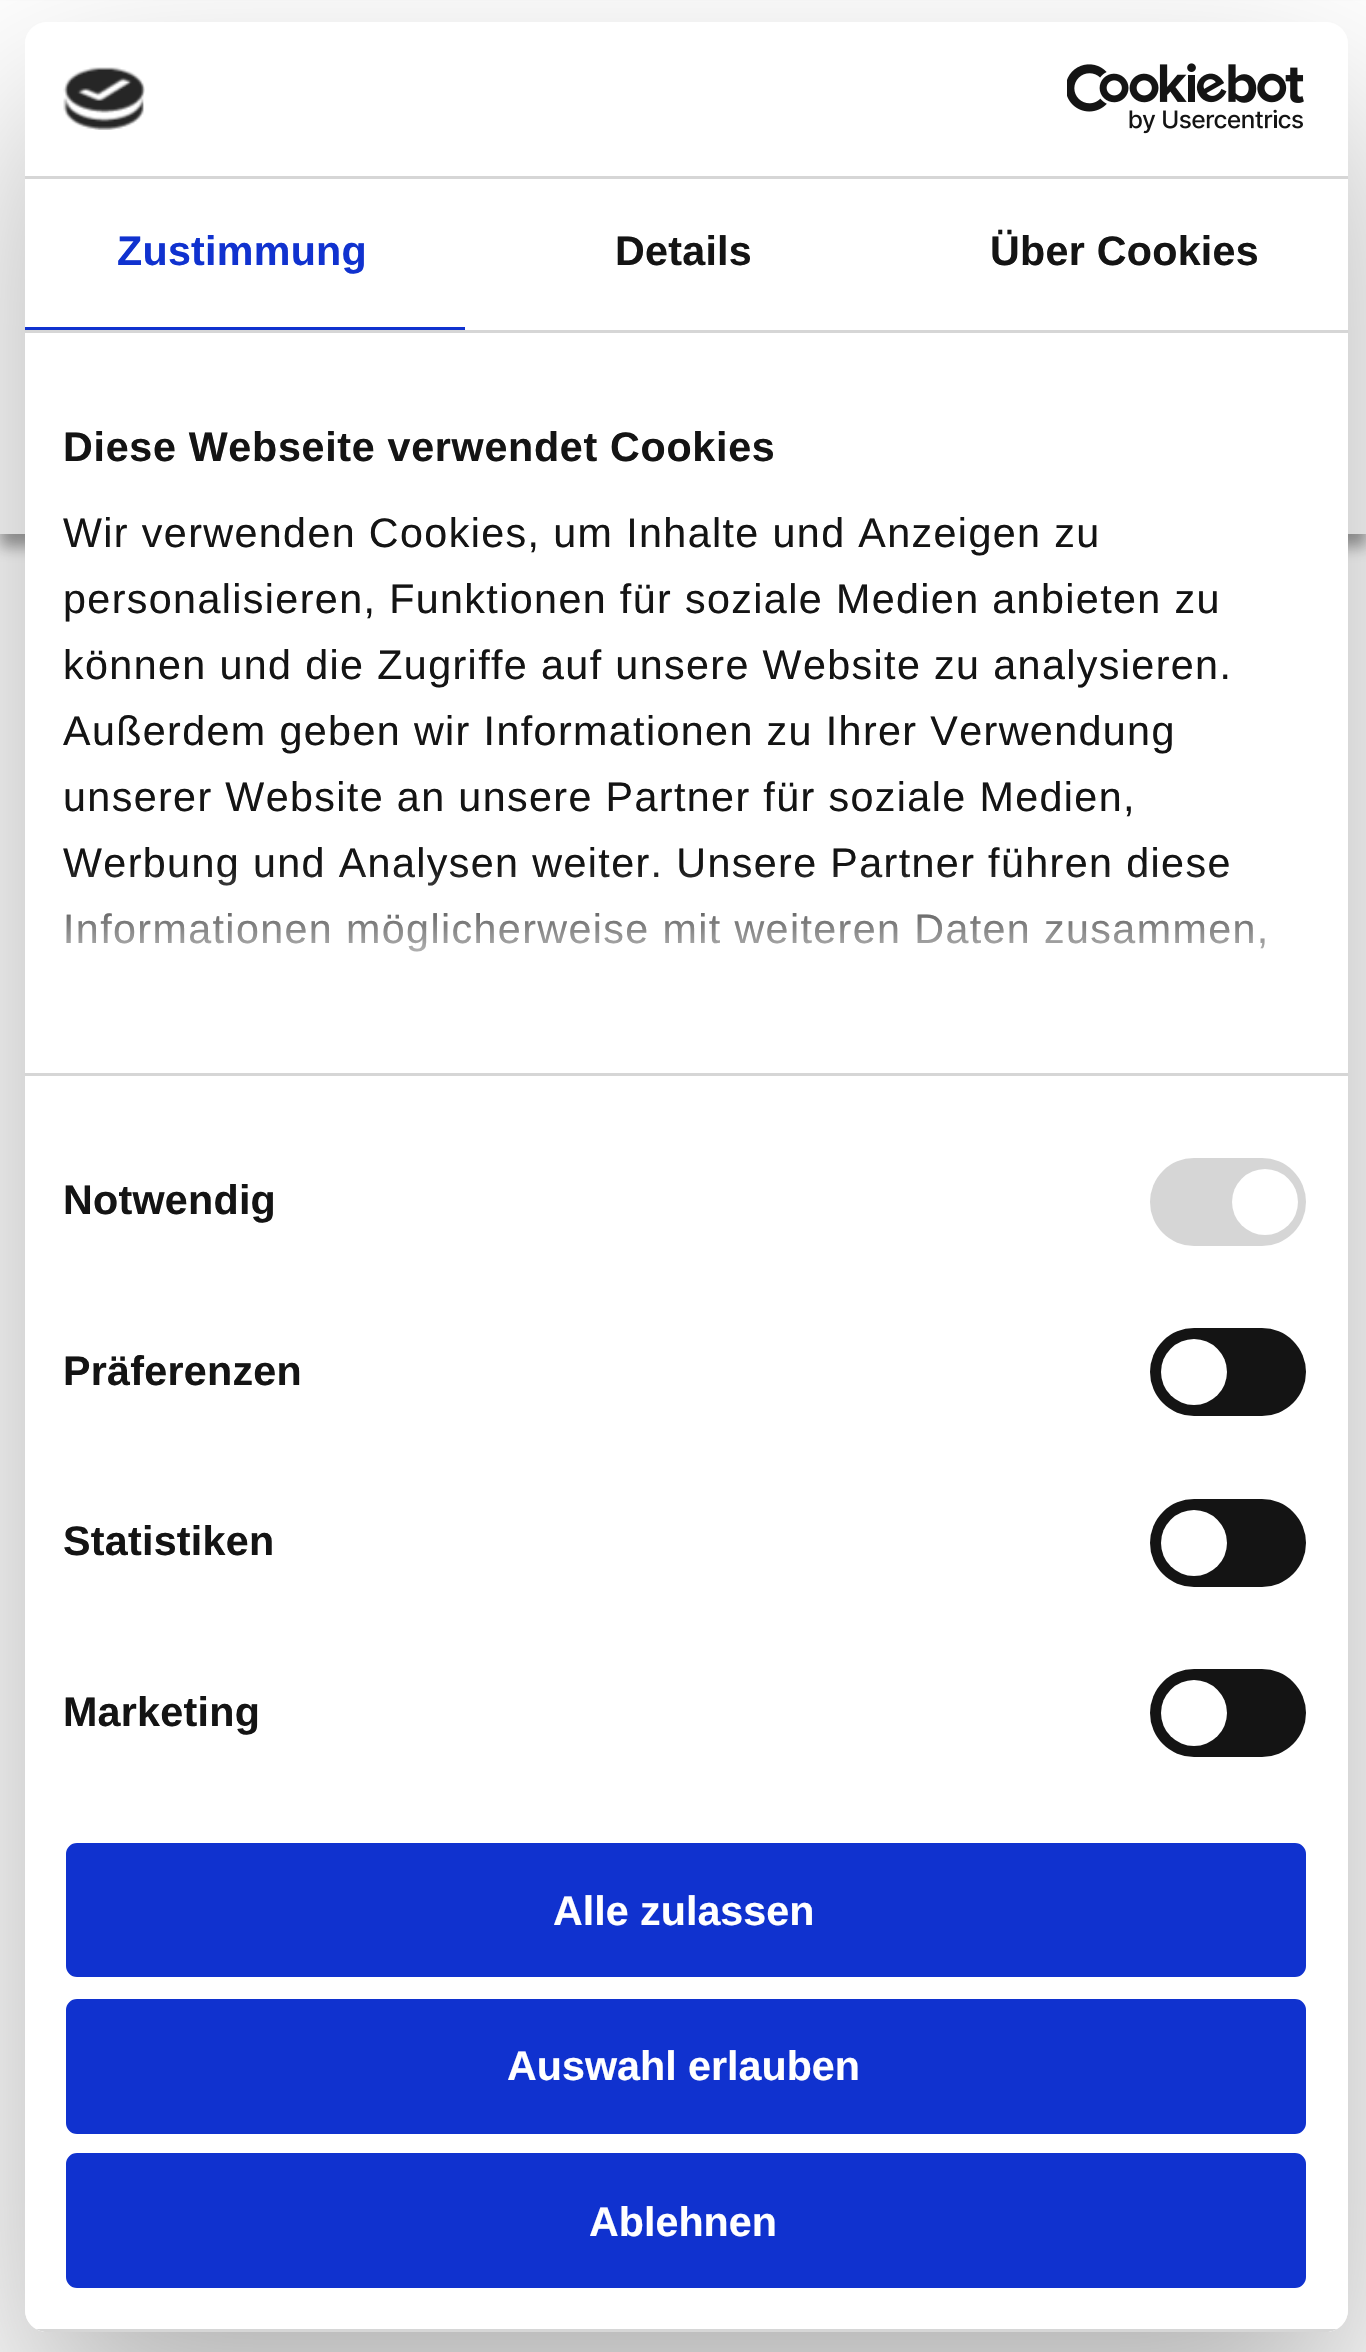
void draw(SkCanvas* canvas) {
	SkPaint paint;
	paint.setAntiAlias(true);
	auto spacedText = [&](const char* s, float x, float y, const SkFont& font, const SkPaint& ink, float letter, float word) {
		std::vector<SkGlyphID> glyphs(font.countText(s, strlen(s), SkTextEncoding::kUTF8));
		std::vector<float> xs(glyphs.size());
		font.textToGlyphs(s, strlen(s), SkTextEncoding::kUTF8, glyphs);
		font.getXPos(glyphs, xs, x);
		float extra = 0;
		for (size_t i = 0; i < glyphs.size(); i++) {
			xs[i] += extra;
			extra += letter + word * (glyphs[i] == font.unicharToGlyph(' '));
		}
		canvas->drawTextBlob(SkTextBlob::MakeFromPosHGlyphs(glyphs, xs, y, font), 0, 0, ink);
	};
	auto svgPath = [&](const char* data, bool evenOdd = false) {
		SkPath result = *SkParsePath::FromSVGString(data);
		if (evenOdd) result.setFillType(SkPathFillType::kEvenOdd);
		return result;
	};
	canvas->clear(0xffffffff);
	paint.setColor(0x66141414);
	paint.setMaskFilter(SkMaskFilter::MakeBlur(kNormal_SkBlurStyle, 7));
	canvas->drawRect(SkRect::MakeXYWH(0, 14, 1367, 533), paint);
	paint.setMaskFilter(nullptr);
	paint.setColor(0xffffffff);
	canvas->drawRect(SkRect::MakeXYWH(0, 1, 1366, 533), paint);
	canvas->save();
	canvas->clipPath(svgPath("M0 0H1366V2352H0ZM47 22H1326C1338 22 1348 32 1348 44V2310C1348 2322 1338 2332 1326 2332H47C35 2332 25 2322 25 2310V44C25 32 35 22 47 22Z", true), true);
	paint.setColor(0x4d000000);
	paint.setMaskFilter(SkMaskFilter::MakeBlur(kNormal_SkBlurStyle, 93.5));
	canvas->drawRoundRect(SkRect::MakeXYWH(25, 110, 1323, 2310), 22, 22, paint);
	paint.setMaskFilter(nullptr);
	canvas->restore();
	paint.setColor(0xffffffff);
	canvas->drawRoundRect(SkRect::MakeXYWH(25, 22, 1323, 2310), 22, 22, paint);
	paint.setColor(0xffd6d6d6);
	canvas->drawRect(SkRect::MakeXYWH(25, 176, 1323, 3), paint);
	canvas->drawImageRect(SkImages::DeferredFromEncodedData(SkData::MakeFromFileName("img1.png")), SkRect::MakeXYWH(63, 67, 82, 63), SkSamplingOptions());
	canvas->drawImageRect(SkImages::DeferredFromEncodedData(SkData::MakeFromFileName("img2.png")), SkRect::MakeXYWH(1067, 63, 237, 71), SkSamplingOptions());
	canvas->drawRect(SkRect::MakeXYWH(25, 330, 1323, 3), paint);
	paint.setColor(0xff1032cf);
	canvas->drawRect(SkRect::MakeXYWH(25, 327, 440, 3), paint);
	SkFont f1(fontMgr->matchFamilyStyle("Liberation Sans", SkFontStyle::Bold()), 41.25);
	f1.setSubpixel(true);
	spacedText("Zustimmung", 117, 265, f1, paint, 0.25, 0);
	paint.setColor(0xff141414);
	spacedText("Details", 615, 265, f1, paint, 0.25, 0);
	spacedText("Über Cookies", 990, 265, f1, paint, 0.25, 0);
	paint.setColor(0xffd6d6d6);
	canvas->drawRect(SkRect::MakeXYWH(25, 1073, 1323, 3), paint);
	paint.setColor(0xff141414);
	spacedText("Diese Webseite verwendet Cookies", 63, 461, f1, paint, 0.7, 0);
	SkFont f2(fontMgr->matchFamilyStyle("Liberation Sans", SkFontStyle::Normal()), 41.25);
	f2.setSubpixel(true);
	spacedText("Wir verwenden Cookies, um Inhalte und Anzeigen zu", 63, 547, f2, paint, 1.38, 0);
	spacedText("personalisieren, Funktionen für soziale Medien anbieten zu", 63, 613, f2, paint, 1.38, 0);
	spacedText("können und die Zugriffe auf unsere Website zu analysieren.", 63, 679, f2, paint, 1.38, 0);
	spacedText("Außerdem geben wir Informationen zu Ihrer Verwendung", 63, 745, f2, paint, 1.38, 0);
	spacedText("unserer Website an unsere Partner für soziale Medien,", 63, 811, f2, paint, 1.38, 0);
	spacedText("Werbung und Analysen weiter. Unsere Partner führen diese", 63, 877, f2, paint, 1.38, 0);
	spacedText("Informationen möglicherweise mit weiteren Daten zusammen,", 63, 943, f2, paint, 1.38, 0);
	{
		const SkColor colors[] = {0xffffffff, 0xccffffff, 0x00ffffff};
		const float stops[] = {0, 0.5, 1};
		const SkPoint ends[] = {{667, 1073}, {667, 866}};
		paint.setShader(SkGradientShader::MakeLinear(ends, colors, stops, 3, SkTileMode::kClamp));
		paint.setAlpha(255);
	}
	canvas->drawRect(SkRect::MakeXYWH(67, 869, 1198, 83), paint);
	paint.setShader(nullptr);
	paint.setColor(0xff141414);
	spacedText("Notwendig", 63, 1214, f1, paint, 0.25, 0);
	paint.setColor(0xffd6d6d6);
	canvas->drawRoundRect(SkRect::MakeXYWH(1150, 1158, 156, 88), 44, 44, paint);
	paint.setColor(0xffffffff);
	canvas->drawCircle(1265, 1202, 33, paint);
	paint.setColor(0xff141414);
	spacedText("Präferenzen", 63, 1385, f1, paint, 0.25, 0);
	canvas->drawRoundRect(SkRect::MakeXYWH(1150, 1328, 156, 88), 44, 44, paint);
	paint.setColor(0xffffffff);
	canvas->drawCircle(1194, 1372, 33, paint);
	paint.setColor(0xff141414);
	spacedText("Statistiken", 63, 1555, f1, paint, 0.25, 0);
	canvas->drawRoundRect(SkRect::MakeXYWH(1150, 1499, 156, 88), 44, 44, paint);
	paint.setColor(0xffffffff);
	canvas->drawCircle(1194, 1543, 33, paint);
	paint.setColor(0xff141414);
	spacedText("Marketing", 63, 1726, f1, paint, 0.25, 0);
	canvas->drawRoundRect(SkRect::MakeXYWH(1150, 1669, 156, 88), 44, 44, paint);
	paint.setColor(0xffffffff);
	canvas->drawCircle(1194, 1713, 33, paint);
	canvas->save();
	canvas->clipPath(svgPath("M47 22H1326C1338 22 1348 32 1348 44V2310C1348 2322 1338 2332 1326 2332H47C35 2332 25 2322 25 2310V44C25 32 35 22 47 22Z"), true);
	paint.setColor(0xffd6d6d6);
	canvas->drawRect(SkRect::MakeXYWH(36, 2329, 1301, 3), paint);
	canvas->restore();
	paint.setColor(0xff1032cf);
	canvas->drawRoundRect(SkRect::MakeXYWH(69, 1846, 1234, 128), 8, 8, paint);
	paint.setStroke(true);
	paint.setStrokeWidth(6);
	canvas->drawRoundRect(SkRect::MakeXYWH(69, 1846, 1234, 128), 8, 8, paint);
	paint.setStroke(false);
	paint.setColor(0xffffffff);
	canvas->drawString("Alle zulassen", 553, 1925, f1, paint);
	paint.setColor(0xff1032cf);
	canvas->drawRoundRect(SkRect::MakeXYWH(69, 2002, 1234, 129), 8, 8, paint);
	paint.setStroke(true);
	canvas->drawRoundRect(SkRect::MakeXYWH(69, 2002, 1234, 129), 8, 8, paint);
	paint.setStroke(false);
	paint.setColor(0xffffffff);
	canvas->drawString("Auswahl erlauben", 507, 2080, f1, paint);
	paint.setColor(0xff1032cf);
	canvas->drawRoundRect(SkRect::MakeXYWH(69, 2156, 1234, 129), 8, 8, paint);
	paint.setStroke(true);
	canvas->drawRoundRect(SkRect::MakeXYWH(69, 2156, 1234, 129), 8, 8, paint);
	paint.setStroke(false);
	paint.setColor(0xffffffff);
	canvas->drawString("Ablehnen", 589, 2236, f1, paint);
}
